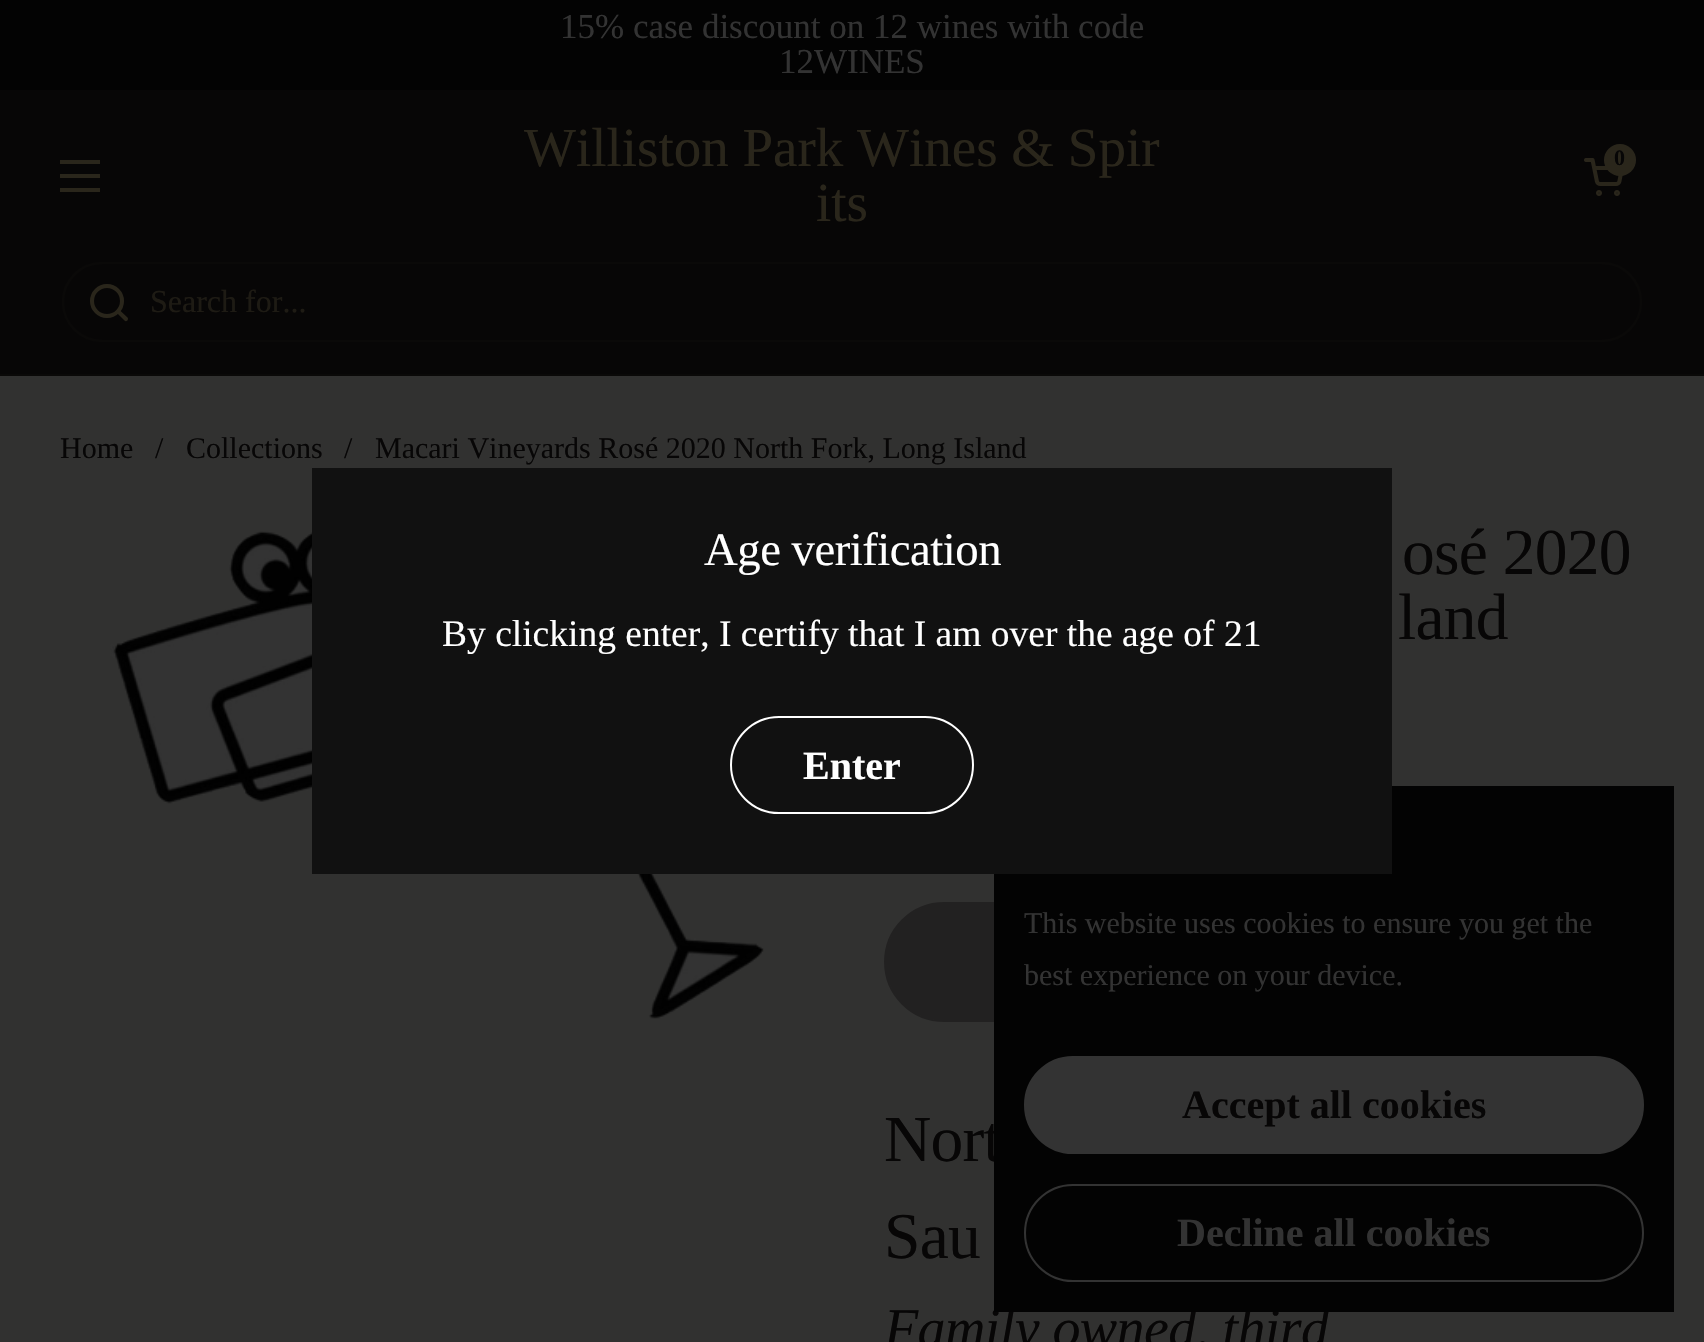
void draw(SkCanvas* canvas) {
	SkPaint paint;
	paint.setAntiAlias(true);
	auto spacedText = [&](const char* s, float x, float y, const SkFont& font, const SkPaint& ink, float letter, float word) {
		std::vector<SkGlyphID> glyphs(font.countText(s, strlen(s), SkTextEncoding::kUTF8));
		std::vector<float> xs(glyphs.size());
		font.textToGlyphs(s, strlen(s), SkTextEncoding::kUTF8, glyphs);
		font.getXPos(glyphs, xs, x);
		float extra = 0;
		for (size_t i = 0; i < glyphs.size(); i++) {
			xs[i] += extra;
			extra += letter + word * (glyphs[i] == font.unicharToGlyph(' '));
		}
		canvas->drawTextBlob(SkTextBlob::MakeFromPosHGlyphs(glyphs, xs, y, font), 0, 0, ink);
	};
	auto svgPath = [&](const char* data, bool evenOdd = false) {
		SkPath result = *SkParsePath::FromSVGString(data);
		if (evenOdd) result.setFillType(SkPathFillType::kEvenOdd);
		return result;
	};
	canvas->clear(0xff313130);
	paint.setColor(0xff030303);
	canvas->drawRect(SkRect::MakeXYWH(0, 0, 1704, 90), paint);
	SkFont f1(fontMgr->matchFamilyStyle("Liberation Serif", SkFontStyle::Normal()), 35);
	f1.setSubpixel(true);
	paint.setColor(0xff333333);
	canvas->drawString("15% case discount on 12 wines with code", 560, 38, f1, paint);
	canvas->drawString("12WINES", 779, 73, f1, paint);
	paint.setColor(0xff070606);
	canvas->drawRect(SkRect::MakeXYWH(0, 90, 1704, 284), paint);
	SkFont f2(fontMgr->matchFamilyStyle("Liberation Serif", SkFontStyle::Normal()), 55);
	f2.setSubpixel(true);
	paint.setColor(0xff2a261b);
	canvas->drawString("Williston Park Wines & Spir", 524, 166, f2, paint);
	canvas->drawString("its", 816, 221, f2, paint);
	canvas->drawImageRect(SkImages::DeferredFromEncodedData(SkData::MakeFromFileName("img1.png")), SkRect::MakeXYWH(1584, 158, 39, 38), SkSamplingOptions());
	canvas->drawCircle(1620, 160, 16, paint);
	SkFont f3(fontMgr->matchFamilyStyle("Liberation Serif", SkFontStyle::Bold()), 22);
	f3.setSubpixel(true);
	paint.setColor(0xff070606);
	canvas->drawString("0", 1614, 165, f3, paint);
	paint.setColor(0xff2a261b);
	canvas->drawRect(SkRect::MakeXYWH(60, 160, 40, 4), paint);
	canvas->drawRect(SkRect::MakeXYWH(60, 174, 40, 4), paint);
	canvas->drawRect(SkRect::MakeXYWH(60, 188, 40, 4), paint);
	paint.setColor(0xff0a0908);
	canvas->drawRect(SkRect::MakeXYWH(0, 374, 1704, 2), paint);
	paint.setStroke(true);
	paint.setStrokeWidth(2);
	canvas->drawRoundRect(SkRect::MakeXYWH(63, 263, 1578, 78), 39, 39, paint);
	paint.setStrokeWidth(4);
	paint.setColor(0xff2a261b);
	canvas->drawCircle(107, 301, 15, paint);
	paint.setStroke(false);
	canvas->drawPath(svgPath("M120 310.5L119 309L116 312L117.5 313.5ZM124.5 320.5C126.5 322.5 129 319.5 127.5 317.5ZM117.5 313.5L124.5 320.5L127.5 317.5L120 310.5Z"), paint);
	SkFont f4(fontMgr->matchFamilyStyle("Liberation Serif", SkFontStyle::Normal()), 32);
	f4.setSubpixel(true);
	paint.setColor(0xff1e1b14);
	canvas->drawString("Search for...", 150, 312, f4, paint);
	SkFont f5(fontMgr->matchFamilyStyle("Liberation Serif", SkFontStyle::Normal()), 30);
	f5.setSubpixel(true);
	paint.setColor(0xff070606);
	canvas->drawString("Home", 60, 458, f5, paint);
	canvas->drawString("/", 155, 458, f5, paint);
	canvas->drawString("Collections", 186, 458, f5, paint);
	canvas->drawString("/", 344, 458, f5, paint);
	canvas->drawString("Macari Vineyards Rosé 2020 North Fork, Long Island", 375, 458, f5, paint);
	canvas->drawImageRect(SkImages::DeferredFromEncodedData(SkData::MakeFromFileName("img2.png")), SkRect::MakeXYWH(110, 531, 654, 488), SkSamplingOptions());
	SkFont f6(fontMgr->matchFamilyStyle("Liberation Serif", SkFontStyle::Normal()), 65.5);
	f6.setSubpixel(true);
	spacedText("osé 2020", 1402, 574, f6, paint, -0.75, 0);
	spacedText("land", 1398, 639, f6, paint, -0.75, 0);
	paint.setColor(0xff222121);
	canvas->drawRoundRect(SkRect::MakeXYWH(885, 903, 758, 118), 59, 59, paint);
	paint.setStroke(true);
	paint.setStrokeWidth(2);
	canvas->drawRoundRect(SkRect::MakeXYWH(885, 903, 758, 118), 59, 59, paint);
	paint.setStroke(false);
	paint.setColor(0xff070606);
	spacedText("Nort", 884, 1161, f6, paint, -0.75, 0);
	spacedText("Sau", 884, 1258, f6, paint, -0.75, 0);
	SkFont f7(fontMgr->matchFamilyStyle("Liberation Serif", SkFontStyle::Italic()), 56);
	f7.setSubpixel(true);
	spacedText("Family owned, third", 884, 1347, f7, paint, -0.6, 0);
	paint.setColor(0xff030303);
	canvas->drawRect(SkRect::MakeXYWH(994, 786, 680, 526), paint);
	paint.setColor(0xff111111);
	canvas->drawRect(SkRect::MakeXYWH(312, 468, 1080, 406), paint);
	SkFont f8(fontMgr->matchFamilyStyle("Liberation Serif", SkFontStyle::Normal()), 46.75);
	f8.setSubpixel(true);
	paint.setColor(0xffffffff);
	spacedText("Age verification", 704, 565, f8, paint, -0.5, 0);
	SkFont f9(fontMgr->matchFamilyStyle("Liberation Serif", SkFontStyle::Normal()), 37.5);
	f9.setSubpixel(true);
	canvas->drawString("By clicking enter, I certify that I am over the age of 21", 442, 646, f9, paint);
	paint.setStroke(true);
	canvas->drawRoundRect(SkRect::MakeXYWH(731, 717, 242, 96), 48, 48, paint);
	SkFont f10(fontMgr->matchFamilyStyle("Liberation Serif", SkFontStyle::Bold()), 40);
	f10.setSubpixel(true);
	paint.setStroke(false);
	canvas->drawString("Enter", 803, 779, f10, paint);
	paint.setColor(0xff333333);
	canvas->drawString("This website uses cookies to ensure you get the", 1024, 933, f5, paint);
	canvas->drawString("best experience on your device.", 1024, 985, f5, paint);
	canvas->drawRoundRect(SkRect::MakeXYWH(1025, 1057, 618, 96), 48, 48, paint);
	paint.setStroke(true);
	canvas->drawRoundRect(SkRect::MakeXYWH(1025, 1057, 618, 96), 48, 48, paint);
	paint.setStroke(false);
	paint.setColor(0xff070606);
	canvas->drawString("Accept all cookies", 1182, 1118, f10, paint);
	paint.setStroke(true);
	paint.setColor(0xff333333);
	canvas->drawRoundRect(SkRect::MakeXYWH(1025, 1185, 618, 96), 48, 48, paint);
	paint.setStroke(false);
	canvas->drawString("Decline all cookies", 1177, 1246, f10, paint);
}
